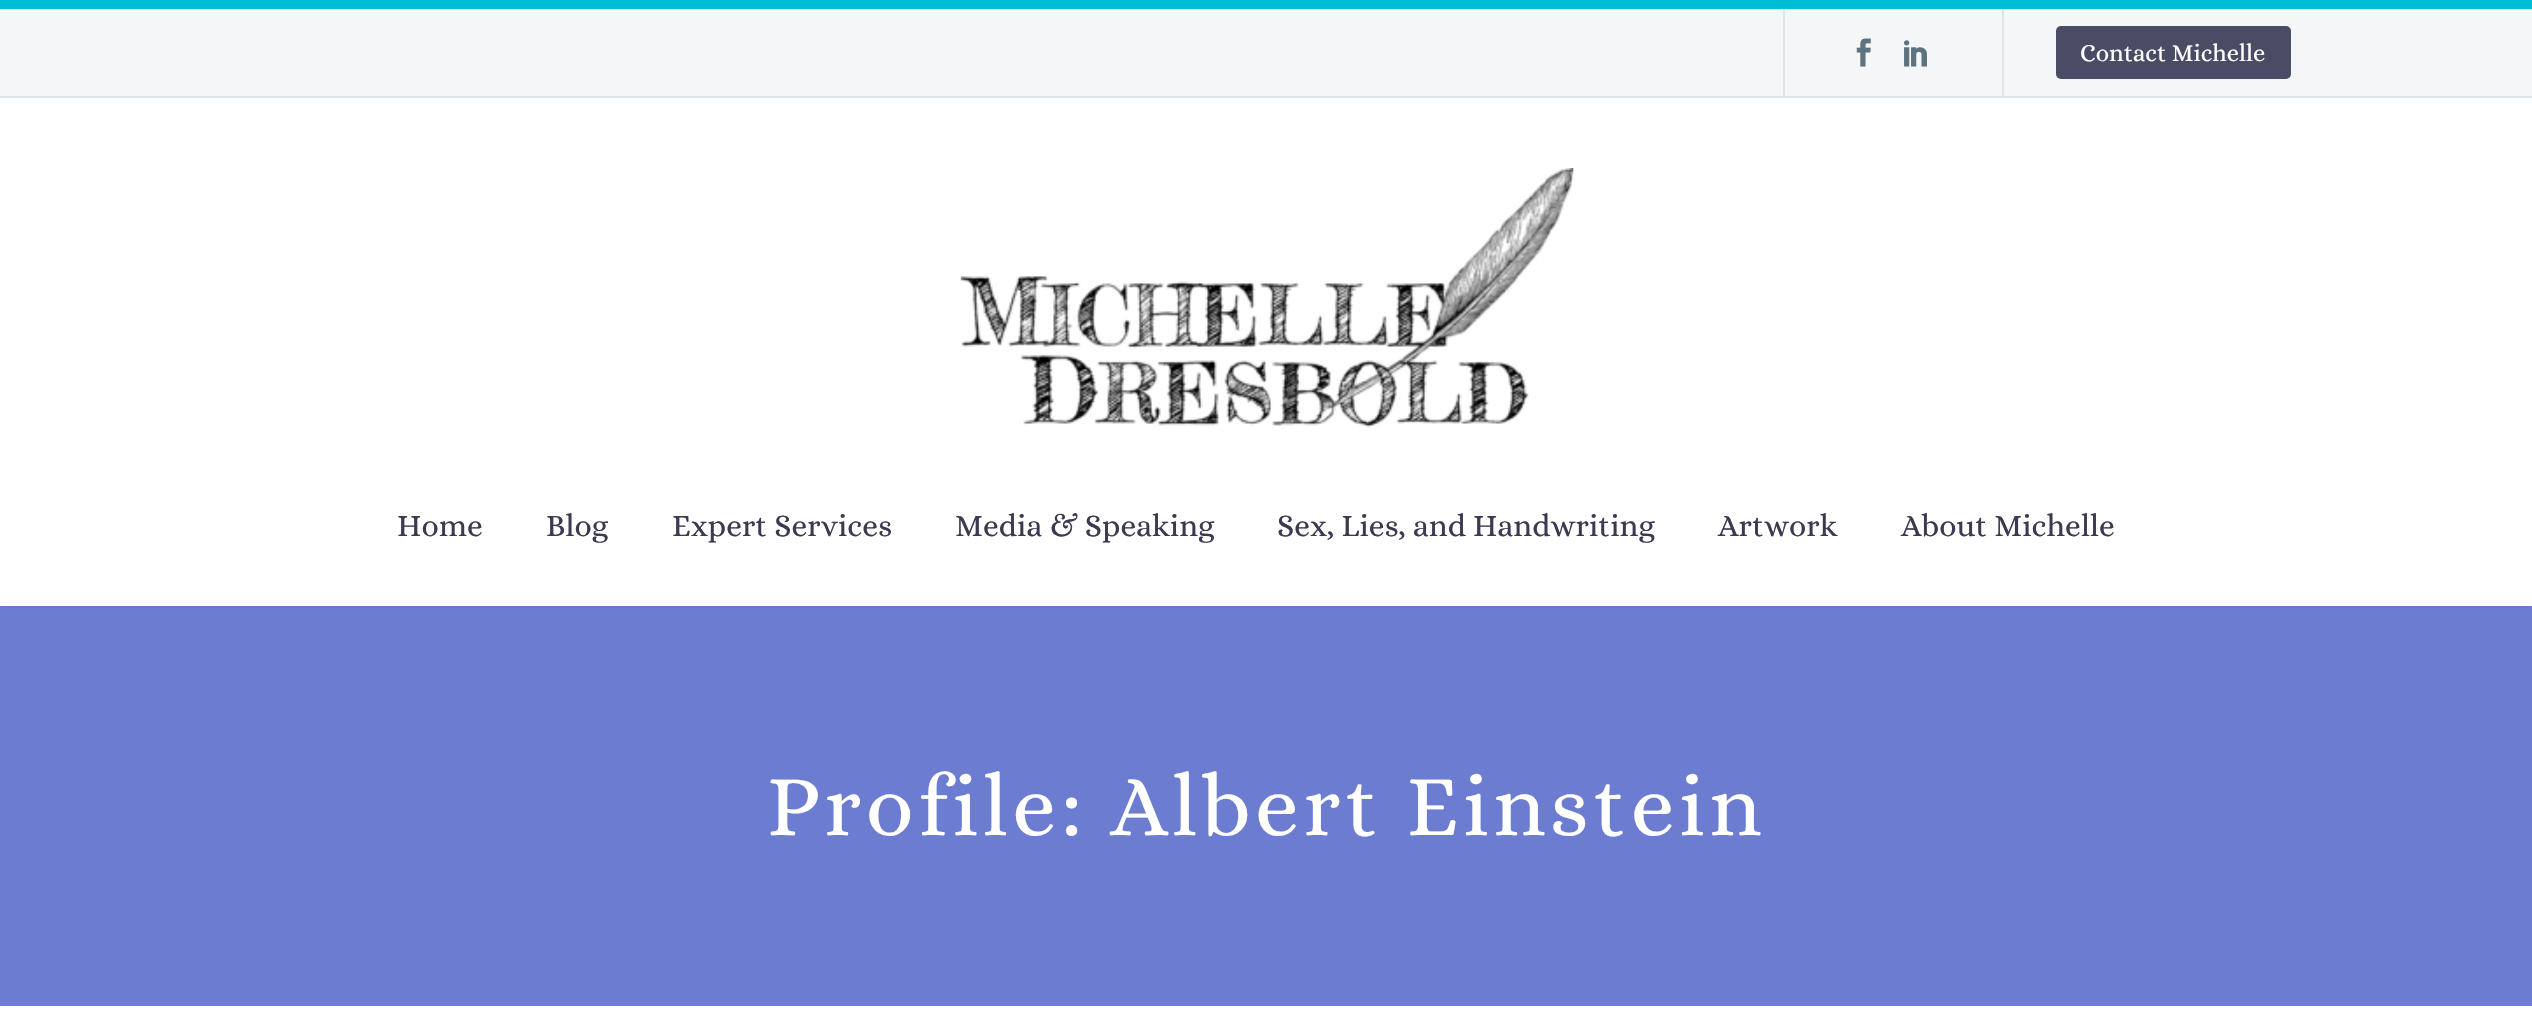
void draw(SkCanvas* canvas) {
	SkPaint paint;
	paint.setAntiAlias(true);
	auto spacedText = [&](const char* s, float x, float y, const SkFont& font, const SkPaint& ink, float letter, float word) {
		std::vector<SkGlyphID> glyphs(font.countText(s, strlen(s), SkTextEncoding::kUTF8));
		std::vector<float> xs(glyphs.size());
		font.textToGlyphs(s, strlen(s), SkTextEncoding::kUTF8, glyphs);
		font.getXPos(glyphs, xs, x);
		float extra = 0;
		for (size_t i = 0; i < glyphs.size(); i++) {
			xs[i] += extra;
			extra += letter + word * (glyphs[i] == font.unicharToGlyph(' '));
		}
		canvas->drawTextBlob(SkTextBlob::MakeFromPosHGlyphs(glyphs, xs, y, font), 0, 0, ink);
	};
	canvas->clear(0xffffffff);
	paint.setColor(0xff6c7cd0);
	canvas->drawRect(SkRect::MakeXYWH(0, 606, 2532, 400), paint);
	paint.setColor(0x33384554);
	paint.setMaskFilter(SkMaskFilter::MakeBlur(kNormal_SkBlurStyle, 2));
	canvas->drawRect(SkRect::MakeXYWH(0, 0, 2532, 606), paint);
	paint.setMaskFilter(nullptr);
	paint.setColor(0xfff4f6f7);
	canvas->drawRect(SkRect::MakeXYWH(0, 9, 2532, 87), paint);
	paint.setColor(0xff00bcd4);
	canvas->drawRect(SkRect::MakeXYWH(0, 0, 2532, 9), paint);
	paint.setColor(0xffdfe5e8);
	canvas->drawRect(SkRect::MakeXYWH(0, 96, 2532, 2), paint);
	canvas->drawRect(SkRect::MakeXYWH(1783, 9, 2, 87), paint);
	canvas->drawImageRect(SkImages::DeferredFromEncodedData(SkData::MakeFromFileName("img1.png")), SkRect::MakeXYWH(1856, 38, 15, 29), SkSamplingOptions());
	canvas->drawImageRect(SkImages::DeferredFromEncodedData(SkData::MakeFromFileName("img2.png")), SkRect::MakeXYWH(1904, 40, 23, 27), SkSamplingOptions());
	canvas->drawRect(SkRect::MakeXYWH(2002, 9, 2, 87), paint);
	paint.setColor(0xff494c64);
	canvas->drawRoundRect(SkRect::MakeXYWH(2056, 26, 235, 53), 5, 5, paint);
	SkFont f1(fontMgr->matchFamilyStyle("Alice", SkFontStyle::Normal()), 24.5);
	f1.setSubpixel(true);
	paint.setColor(0xffffffff);
	canvas->drawString("Contact Michelle", 2080, 61, f1, paint);
	canvas->drawRect(SkRect::MakeXYWH(0, 98, 2532, 508), paint);
	canvas->drawImageRect(SkImages::DeferredFromEncodedData(SkData::MakeFromFileName("img3.png")), SkRect::MakeXYWH(960, 168, 614, 260), SkSamplingOptions());
	SkFont f2(fontMgr->matchFamilyStyle("Alice", SkFontStyle::Normal()), 31.5);
	f2.setSubpixel(true);
	paint.setColor(0xff3c3950);
	canvas->drawString("Home", 397, 536, f2, paint);
	canvas->drawString("Blog", 546, 536, f2, paint);
	canvas->drawString("Expert Services", 672, 536, f2, paint);
	canvas->drawString("Media & Speaking", 955, 536, f2, paint);
	canvas->drawString("Sex, Lies, and Handwriting", 1277, 536, f2, paint);
	canvas->drawString("Artwork", 1718, 536, f2, paint);
	canvas->drawString("About Michelle", 1901, 536, f2, paint);
	SkFont f3(fontMgr->matchFamilyStyle("Alice", SkFontStyle::Normal()), 87.5);
	f3.setSubpixel(true);
	paint.setColor(0xffffffff);
	spacedText("Profile: Albert Einstein", 767, 835, f3, paint, 4.4, 0);
}
